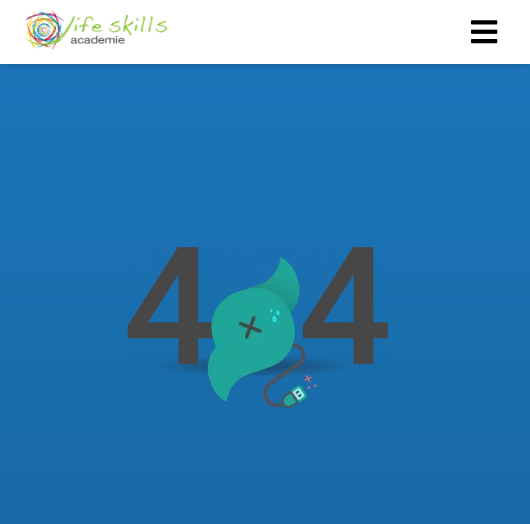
void draw(SkCanvas* canvas) {
	SkPaint paint;
	paint.setAntiAlias(true);
	canvas->clear(0xffffffff);
	{
		const SkColor colors[] = {0xff1b75b8, 0xff166199};
		const float stops[] = {0, 1};
		const SkPoint ends[] = {{265, 64}, {265, 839}};
		paint.setShader(SkGradientShader::MakeLinear(ends, colors, stops, 2, SkTileMode::kClamp));
		paint.setAlpha(255);
	}
	canvas->drawRect(SkRect::MakeXYWH(0, 64, 530, 460), paint);
	canvas->save();
	canvas->clipRect(SkRect::MakeXYWH(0, 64, 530, 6));
	paint.setShader(nullptr);
	paint.setColor(0x33000000);
	paint.setMaskFilter(SkMaskFilter::MakeBlur(kNormal_SkBlurStyle, 5));
	canvas->drawRect(SkRect::MakeXYWH(0, 0, 530, 64), paint);
	paint.setMaskFilter(nullptr);
	canvas->restore();
	canvas->drawImageRect(SkImages::DeferredFromEncodedData(SkData::MakeFromFileName("img1.png")), SkRect::MakeXYWH(24, 10, 144, 40), SkSamplingOptions());
	canvas->drawImageRect(SkImages::DeferredFromEncodedData(SkData::MakeFromFileName("img2.png")), SkRect::MakeXYWH(471, 20, 27, 24), SkSamplingOptions());
	canvas->drawImageRect(SkImages::DeferredFromEncodedData(SkData::MakeFromFileName("img3.png")), SkRect::MakeXYWH(127, 247, 262, 162), SkSamplingOptions());
}
